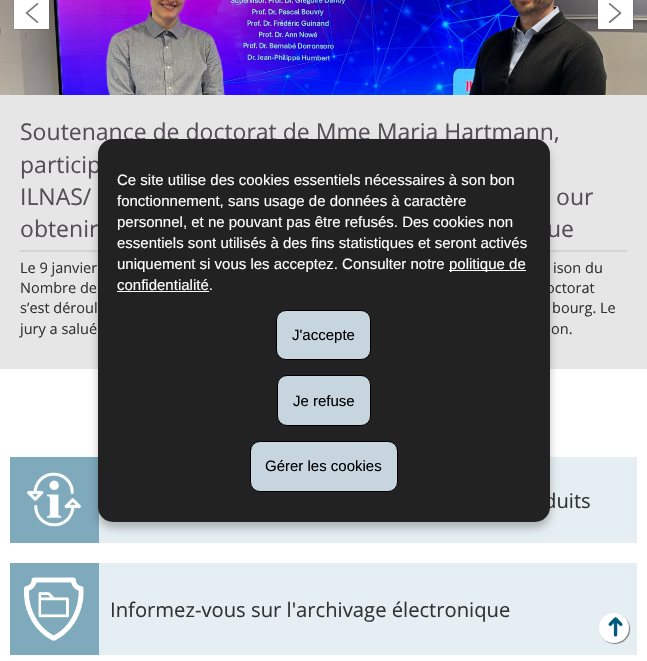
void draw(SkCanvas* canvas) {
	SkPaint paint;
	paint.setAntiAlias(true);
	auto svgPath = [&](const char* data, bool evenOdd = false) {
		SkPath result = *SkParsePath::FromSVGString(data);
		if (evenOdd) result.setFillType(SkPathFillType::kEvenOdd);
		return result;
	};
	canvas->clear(0xffffffff);
	paint.setColor(0xffe6e6e6);
	canvas->drawRect(SkRect::MakeXYWH(0, 95, 647, 274), paint);
	canvas->drawImageRect(SkImages::DeferredFromEncodedData(SkData::MakeFromFileName("img3.png")), SkRect::MakeXYWH(0, 0, 647, 95), SkSamplingOptions());
	paint.setColor(0x80000000);
	paint.setMaskFilter(SkMaskFilter::MakeBlur(kNormal_SkBlurStyle, 0.5));
	canvas->drawRect(SkRect::MakeXYWH(14, -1, 35, 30), paint);
	paint.setMaskFilter(nullptr);
	paint.setColor(0xffffffff);
	canvas->drawRect(SkRect::MakeXYWH(14, 0, 35, 29), paint);
	canvas->drawImageRect(SkImages::DeferredFromEncodedData(SkData::MakeFromFileName("img1.png")), SkRect::MakeXYWH(25, 3, 14, 20), SkSamplingOptions());
	paint.setColor(0x80000000);
	paint.setMaskFilter(SkMaskFilter::MakeBlur(kNormal_SkBlurStyle, 0.5));
	canvas->drawRect(SkRect::MakeXYWH(598, -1, 35, 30), paint);
	paint.setMaskFilter(nullptr);
	paint.setColor(0xffffffff);
	canvas->drawRect(SkRect::MakeXYWH(598, 0, 35, 29), paint);
	canvas->drawImageRect(SkImages::DeferredFromEncodedData(SkData::MakeFromFileName("img2.png")), SkRect::MakeXYWH(608, 3, 14, 20), SkSamplingOptions());
	paint.setColor(0xffd4d2d4);
	canvas->drawRect(SkRect::MakeXYWH(20, 250, 607, 2), paint);
	SkFont f1(fontMgr->matchFamilyStyle("Open Sans", SkFontStyle::Normal()), 23);
	f1.setSubpixel(true);
	paint.setColor(0xff534d54);
	canvas->drawString("Soutenance de doctorat de Mme Maria Hartmann,", 20, 140, f1, paint);
	canvas->drawString("particip", 20, 173, f1, paint);
	canvas->drawString("ILNAS/", 20, 205, f1, paint);
	canvas->drawString("our", 556, 205, f1, paint);
	canvas->drawString("obtenir", 20, 237, f1, paint);
	canvas->drawString("ue", 547, 237, f1, paint);
	SkFont f2(fontMgr->matchFamilyStyle("Open Sans", SkFontStyle::Normal()), 14.5);
	f2.setSubpixel(true);
	paint.setColor(0xff333333);
	canvas->drawString("Le 9 janvier", 20, 273, f2, paint);
	canvas->drawString("ison du", 553, 273, f2, paint);
	canvas->drawString("Nombre de", 20, 293, f2, paint);
	canvas->drawString("octorat", 546, 293, f2, paint);
	canvas->drawString("s’est déroul", 20, 313, f2, paint);
	canvas->drawString("bourg. Le", 552, 313, f2, paint);
	canvas->drawString("jury a salué", 20, 334, f2, paint);
	canvas->drawString("on.", 551, 334, f2, paint);
	paint.setColor(0xffe5eef2);
	canvas->drawRect(SkRect::MakeXYWH(99, 457, 538, 86), paint);
	paint.setColor(0xff7faabc);
	canvas->drawRect(SkRect::MakeXYWH(10, 457, 89, 86), paint);
	canvas->drawImageRect(SkImages::DeferredFromEncodedData(SkData::MakeFromFileName("img4.png")), SkRect::MakeXYWH(27, 472, 54, 55), SkSamplingOptions());
	SkFont f3(fontMgr->matchFamilyStyle("Open Sans", SkFontStyle::Normal()), 20.2);
	f3.setSubpixel(true);
	paint.setColor(0xff333333);
	canvas->drawString("duits", 544, 508, f3, paint);
	paint.setColor(0xffe5eef2);
	canvas->drawRect(SkRect::MakeXYWH(99, 563, 538, 92), paint);
	paint.setColor(0xff7faabc);
	canvas->drawRect(SkRect::MakeXYWH(10, 563, 89, 92), paint);
	canvas->drawImageRect(SkImages::DeferredFromEncodedData(SkData::MakeFromFileName("img5.png")), SkRect::MakeXYWH(24, 577, 60, 64), SkSamplingOptions());
	paint.setColor(0xff333333);
	canvas->drawString("Informez-vous sur l'archivage électronique", 110, 617, f3, paint);
	paint.setColor(0x80000000);
	paint.setMaskFilter(SkMaskFilter::MakeBlur(kNormal_SkBlurStyle, 0.5));
	canvas->drawRoundRect(SkRect::MakeXYWH(600, 614, 30, 30), 15, 15, paint);
	paint.setMaskFilter(nullptr);
	paint.setColor(0xffffffff);
	canvas->drawPath(svgPath("M599 628C599 619.5 605.5 613 614 613C622.5 613 629 619.5 629 628C629 636.5 622.5 643 614 643C605.5 643 599 636.5 599 628Z"), paint);
	SkFont f4(fontMgr->matchFamilyStyle("DejaVu Sans", SkFontStyle::Normal()), 27);
	f4.setSubpixel(true);
	paint.setColor(0xff00597b);
	canvas->save();
	canvas->rotate(-90, 624, 638);
	canvas->drawString("➜", 624, 638, f4, paint);
	canvas->restore();
	paint.setColor(0x40000000);
	paint.setMaskFilter(SkMaskFilter::MakeBlur(kNormal_SkBlurStyle, 4.5));
	canvas->drawRoundRect(SkRect::MakeXYWH(98, 145, 452, 383), 15, 15, paint);
	paint.setMaskFilter(nullptr);
	paint.setColor(0xff222222);
	canvas->drawRoundRect(SkRect::MakeXYWH(98, 139, 452, 383), 15, 15, paint);
	SkFont f5(fontMgr->matchFamilyStyle("Liberation Sans", SkFontStyle::Normal()), 15);
	f5.setSubpixel(true);
	paint.setColor(0xffffffff);
	canvas->drawString("Ce site utilise des cookies essentiels nécessaires à son bon", 117, 185, f5, paint);
	canvas->drawString("fonctionnement, sans usage de données à caractère", 117, 206, f5, paint);
	canvas->drawString("personnel, et ne pouvant pas être refusés. Des cookies non", 117, 227, f5, paint);
	canvas->drawString("essentiels sont utilisés à des fins statistiques et seront activés", 117, 248, f5, paint);
	canvas->drawString("uniquement si vous les acceptez. Consulter notre", 117, 269, f5, paint);
	canvas->drawRect(SkRect::MakeXYWH(449, 270, 77, 1), paint);
	canvas->drawString("politique de", 449, 269, f5, paint);
	canvas->drawString("confidentialité.", 117, 290, f5, paint);
	canvas->drawRect(SkRect::MakeXYWH(117, 291, 92, 1), paint);
	paint.setColor(0xffc6d5de);
	canvas->drawRoundRect(SkRect::MakeXYWH(276.5, 310.5, 94, 49), 9.5, 9.5, paint);
	paint.setStroke(true);
	paint.setStrokeWidth(1);
	paint.setColor(0xff000000);
	canvas->drawRoundRect(SkRect::MakeXYWH(276.5, 310.5, 94, 49), 9.5, 9.5, paint);
	paint.setStroke(false);
	canvas->drawString("J'accepte", 292, 340, f5, paint);
	paint.setColor(0xffc6d5de);
	canvas->drawRoundRect(SkRect::MakeXYWH(277.5, 375.5, 93, 50), 9.5, 9.5, paint);
	paint.setStroke(true);
	paint.setColor(0xff000000);
	canvas->drawRoundRect(SkRect::MakeXYWH(277.5, 375.5, 93, 50), 9.5, 9.5, paint);
	paint.setStroke(false);
	canvas->drawString("Je refuse", 293, 406, f5, paint);
	paint.setColor(0xffc6d5de);
	canvas->drawRoundRect(SkRect::MakeXYWH(250.5, 441.5, 147, 50), 9.5, 9.5, paint);
	paint.setStroke(true);
	paint.setColor(0xff000000);
	canvas->drawRoundRect(SkRect::MakeXYWH(250.5, 441.5, 147, 50), 9.5, 9.5, paint);
	paint.setStroke(false);
	canvas->drawString("Gérer les cookies", 265, 471, f5, paint);
}
